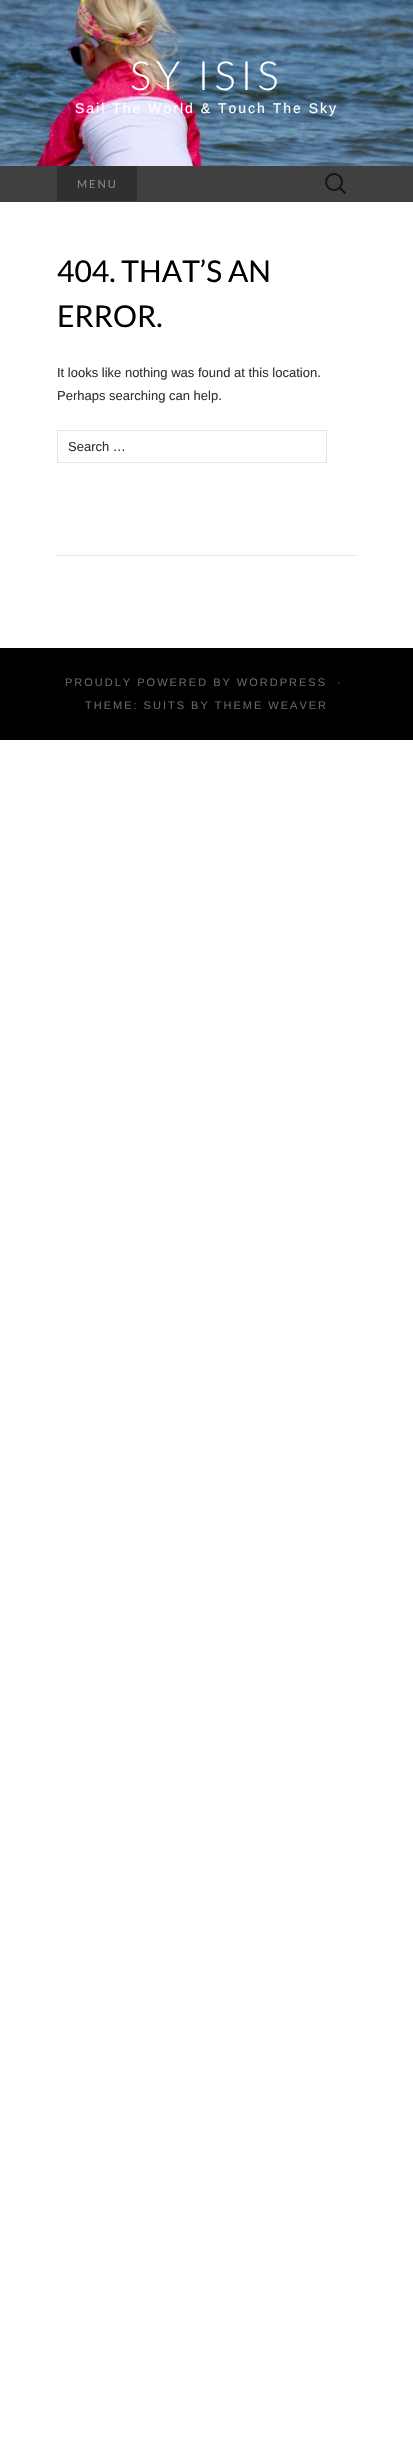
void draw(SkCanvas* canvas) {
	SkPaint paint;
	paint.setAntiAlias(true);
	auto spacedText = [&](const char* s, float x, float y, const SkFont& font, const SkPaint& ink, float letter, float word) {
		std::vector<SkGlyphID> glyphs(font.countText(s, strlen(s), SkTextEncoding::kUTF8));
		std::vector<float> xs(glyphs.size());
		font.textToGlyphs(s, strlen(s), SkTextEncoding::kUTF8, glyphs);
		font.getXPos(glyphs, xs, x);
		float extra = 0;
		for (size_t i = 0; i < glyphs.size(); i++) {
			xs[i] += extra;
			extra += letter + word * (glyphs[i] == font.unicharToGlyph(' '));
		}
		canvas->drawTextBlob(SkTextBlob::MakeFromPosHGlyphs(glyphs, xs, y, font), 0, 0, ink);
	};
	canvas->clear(0xffffffff);
	canvas->drawImageRect(SkImages::DeferredFromEncodedData(SkData::MakeFromFileName("img1.png")), SkRect::MakeXYWH(0, 0, 413, 166), SkSamplingOptions());
	SkFont f1(fontMgr->matchFamilyStyle("Lato", SkFontStyle(300, SkFontStyle::kNormal_Width, SkFontStyle::kUpright_Slant)), 40);
	f1.setSubpixel(true);
	paint.setColor(0xffffffff);
	spacedText("SY ISIS", 130, 90, f1, paint, 5, 0);
	SkFont f2(fontMgr->matchFamilyStyle("Liberation Sans", SkFontStyle::Normal()), 14);
	f2.setSubpixel(true);
	spacedText("Sail The World & Touch The Sky", 75, 113, f2, paint, 2, 0);
	paint.setColor(0xff404040);
	canvas->drawRect(SkRect::MakeXYWH(0, 166, 413, 36), paint);
	paint.setColor(0xff303030);
	canvas->drawRect(SkRect::MakeXYWH(57, 166, 80, 35), paint);
	SkFont f3(fontMgr->matchFamilyStyle("Lato", SkFontStyle::Normal()), 11);
	f3.setSubpixel(true);
	paint.setColor(0xff888888);
	spacedText("MENU", 77, 188, f3, paint, 2, 0);
	canvas->drawImageRect(SkImages::DeferredFromEncodedData(SkData::MakeFromFileName("img2.png")), SkRect::MakeXYWH(325, 173, 21, 21), SkSamplingOptions());
	paint.setColor(0xffe6e6e6);
	canvas->drawRect(SkRect::MakeXYWH(57, 555, 300, 1), paint);
	SkFont f4(fontMgr->matchFamilyStyle("Lato", SkFontStyle::Normal()), 30);
	f4.setSubpixel(true);
	paint.setColor(0xff000000);
	canvas->drawString("404. THAT’S AN", 57, 282, f4, paint);
	canvas->drawString("ERROR.", 57, 327, f4, paint);
	SkFont f5(fontMgr->matchFamilyStyle("Liberation Sans", SkFontStyle::Normal()), 13);
	f5.setSubpixel(true);
	paint.setColor(0xff333333);
	canvas->drawString("It looks like nothing was found at this location.", 57, 377, f5, paint);
	canvas->drawString("Perhaps searching can help.", 57, 400, f5, paint);
	paint.setStroke(true);
	paint.setStrokeWidth(1);
	paint.setColor(0xffe6e6e6);
	canvas->drawRect(SkRect::MakeXYWH(57.5, 430.5, 269, 32), paint);
	paint.setStroke(false);
	paint.setColor(0xff333333);
	canvas->drawString("Search …", 68, 451, f5, paint);
	paint.setColor(0xff000000);
	canvas->drawRect(SkRect::MakeXYWH(0, 648, 413, 92), paint);
	SkFont f6(fontMgr->matchFamilyStyle("Liberation Sans", SkFontStyle::Normal()), 11);
	f6.setSubpixel(true);
	paint.setColor(0xff666666);
	spacedText("PROUDLY POWERED BY WORDPRESS", 65, 686, f6, paint, 2, 0);
	spacedText("·", 337, 686, f6, paint, 2, 0);
	spacedText("THEME: SUITS BY THEME WEAVER", 85, 709, f6, paint, 2, 0);
}
